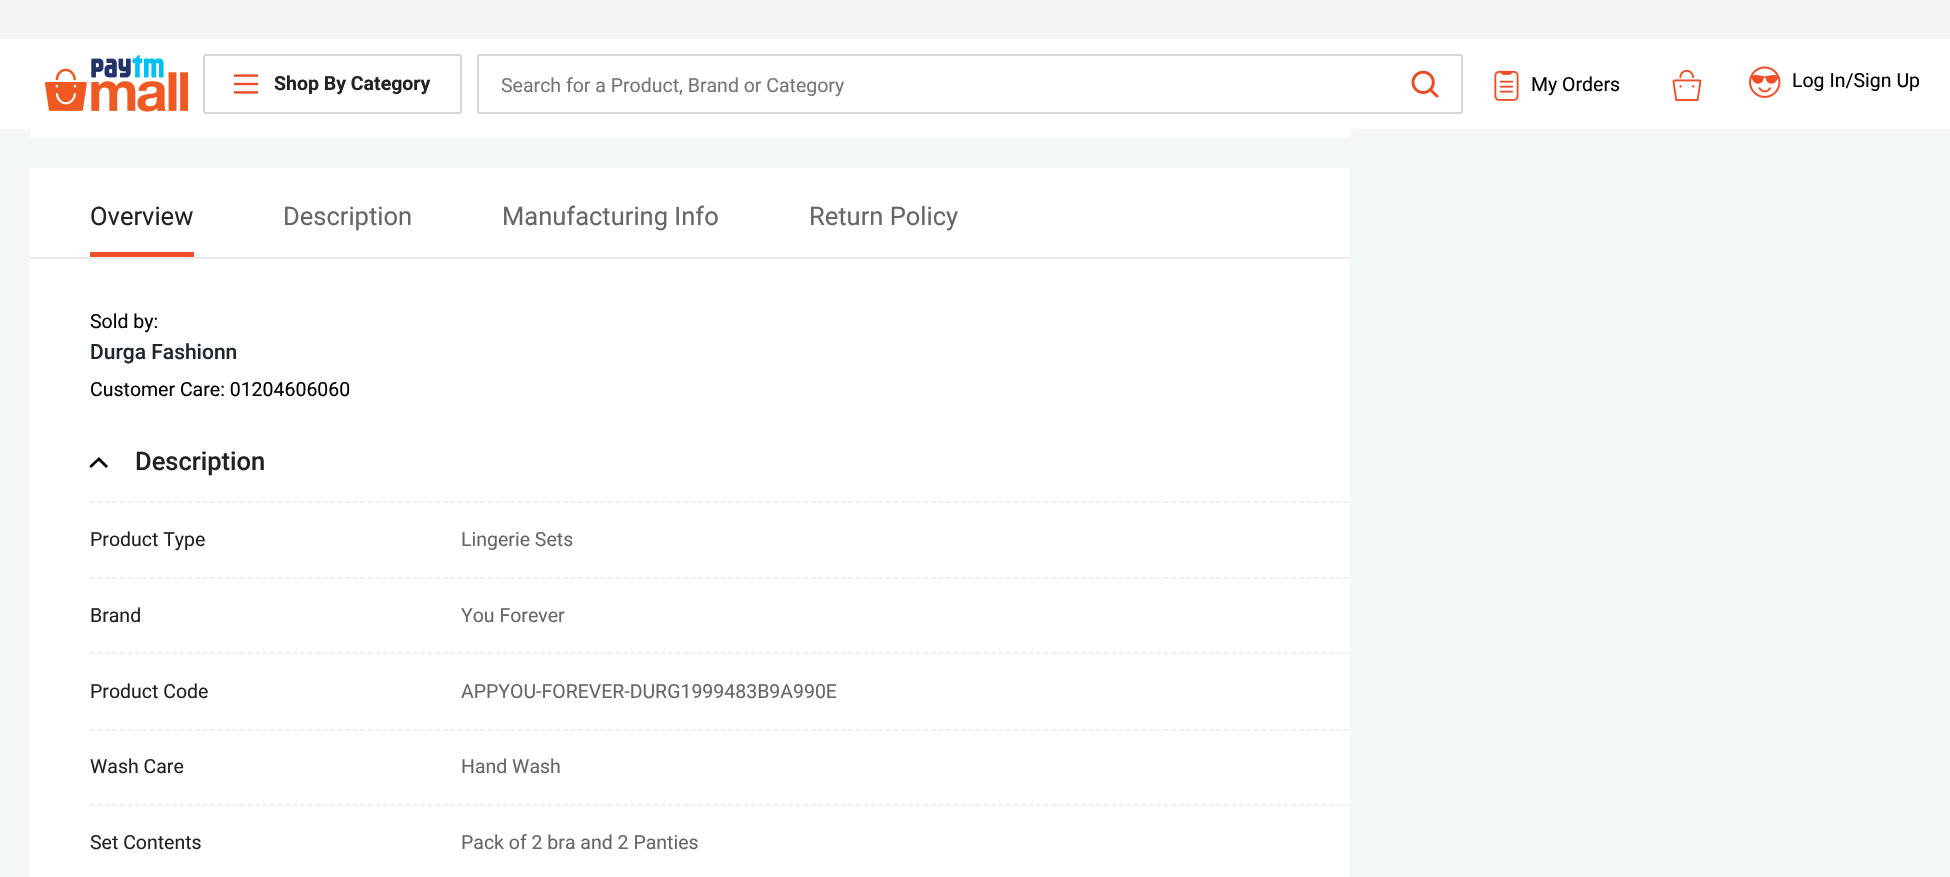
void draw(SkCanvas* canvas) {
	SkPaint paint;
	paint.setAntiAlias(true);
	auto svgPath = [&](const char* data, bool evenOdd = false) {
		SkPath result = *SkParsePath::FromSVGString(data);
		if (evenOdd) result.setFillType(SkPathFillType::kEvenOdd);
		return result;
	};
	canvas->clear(0xfff3f7f8);
	paint.setColor(0xfff4f4f4);
	canvas->drawRect(SkRect::MakeXYWH(0, 0, 1950, 39), paint);
	paint.setColor(0xffffffff);
	canvas->drawRect(SkRect::MakeXYWH(0, 39, 1950, 90), paint);
	canvas->drawImageRect(SkImages::DeferredFromEncodedData(SkData::MakeFromFileName("img1.png")), SkRect::MakeXYWH(91, 58, 40, 20), SkSamplingOptions());
	canvas->drawImageRect(SkImages::DeferredFromEncodedData(SkData::MakeFromFileName("img2.png")), SkRect::MakeXYWH(132, 54, 32, 24), SkSamplingOptions());
	canvas->drawImageRect(SkImages::DeferredFromEncodedData(SkData::MakeFromFileName("img3.png")), SkRect::MakeXYWH(45, 68, 144, 44), SkSamplingOptions());
	paint.setStroke(true);
	paint.setStrokeWidth(2);
	paint.setColor(0xffd6d6d6);
	canvas->drawRoundRect(SkRect::MakeXYWH(204, 55, 257, 58), 2, 2, paint);
	canvas->drawImageRect(SkImages::DeferredFromEncodedData(SkData::MakeFromFileName("img4.png")), SkRect::MakeXYWH(234, 74, 24, 20), SkSamplingOptions());
	SkFont f1(fontMgr->matchFamilyStyle("Roboto", SkFontStyle::Bold()), 19.5);
	f1.setSubpixel(true);
	paint.setStroke(false);
	paint.setColor(0xff222222);
	canvas->drawString("Shop By Category", 274, 90, f1, paint);
	paint.setStroke(true);
	paint.setColor(0xffd6d6d6);
	canvas->drawRoundRect(SkRect::MakeXYWH(478, 55, 984, 58), 2, 2, paint);
	SkFont f2(fontMgr->matchFamilyStyle("Roboto", SkFontStyle::Normal()), 19.5);
	f2.setSubpixel(true);
	paint.setStroke(false);
	paint.setColor(0xff757575);
	canvas->drawString("Search for a Product, Brand or Category", 501, 92, f2, paint);
	canvas->drawImageRect(SkImages::DeferredFromEncodedData(SkData::MakeFromFileName("img5.png")), SkRect::MakeXYWH(1411, 70, 28, 28), SkSamplingOptions());
	canvas->drawImageRect(SkImages::DeferredFromEncodedData(SkData::MakeFromFileName("img6.png")), SkRect::MakeXYWH(1494, 70, 25, 31), SkSamplingOptions());
	paint.setColor(0xff000000);
	canvas->drawString("My Orders", 1531, 91, f2, paint);
	canvas->drawImageRect(SkImages::DeferredFromEncodedData(SkData::MakeFromFileName("img7.png")), SkRect::MakeXYWH(1679, 69, 15, 10), SkSamplingOptions());
	canvas->drawImageRect(SkImages::DeferredFromEncodedData(SkData::MakeFromFileName("img8.png")), SkRect::MakeXYWH(1672, 79, 30, 22), SkSamplingOptions());
	canvas->drawImageRect(SkImages::DeferredFromEncodedData(SkData::MakeFromFileName("img9.png")), SkRect::MakeXYWH(1679, 85, 16, 3), SkSamplingOptions());
	canvas->drawImageRect(SkImages::DeferredFromEncodedData(SkData::MakeFromFileName("img10.png")), SkRect::MakeXYWH(1749, 66, 32, 32), SkSamplingOptions());
	canvas->drawImageRect(SkImages::DeferredFromEncodedData(SkData::MakeFromFileName("img11.png")), SkRect::MakeXYWH(1750, 75, 29, 18), SkSamplingOptions());
	canvas->drawString("Log In/Sign Up", 1792, 87, f2, paint);
	paint.setColor(0xffffffff);
	canvas->drawRect(SkRect::MakeXYWH(30, 129, 1320, 9), paint);
	canvas->drawRect(SkRect::MakeXYWH(30, 168, 1320, 709), paint);
	paint.setColor(0xffebebeb);
	canvas->drawRect(SkRect::MakeXYWH(30, 257, 1320, 2), paint);
	paint.setColor(0xffef4e28);
	canvas->drawRect(SkRect::MakeXYWH(90, 252, 104, 5), paint);
	SkFont f3(fontMgr->matchFamilyStyle("Roboto", SkFontStyle::Normal()), 25.5);
	f3.setSubpixel(true);
	paint.setColor(0xff222222);
	canvas->drawString("Overview", 90, 225, f3, paint);
	paint.setColor(0xff666666);
	canvas->drawString("Description", 283, 225, f3, paint);
	canvas->drawString("Manufacturing Info", 502, 225, f3, paint);
	canvas->drawString("Return Policy", 809, 225, f3, paint);
	paint.setColor(0xff000000);
	canvas->drawString("Sold by:", 90, 328, f2, paint);
	SkFont f4(fontMgr->matchFamilyStyle("Roboto", SkFontStyle(500, SkFontStyle::kNormal_Width, SkFontStyle::kUpright_Slant)), 21);
	f4.setSubpixel(true);
	paint.setColor(0xff1d252d);
	canvas->drawString("Durga Fashionn", 90, 359, f4, paint);
	paint.setColor(0xff000000);
	canvas->drawString("Customer Care: 01204606060", 90, 396, f2, paint);
	canvas->drawImageRect(SkImages::DeferredFromEncodedData(SkData::MakeFromFileName("img12.png")), SkRect::MakeXYWH(89, 457, 19, 11), SkSamplingOptions());
	SkFont f5(fontMgr->matchFamilyStyle("Roboto", SkFontStyle(500, SkFontStyle::kNormal_Width, SkFontStyle::kUpright_Slant)), 25.5);
	f5.setSubpixel(true);
	paint.setColor(0xff222222);
	canvas->drawString("Description", 135, 470, f5, paint);
	paint.setStroke(true);
	paint.setStrokeWidth(1.5);
	paint.setColor(0xffebebeb);
	paint.setPathEffect(SkDashPathEffect::Make({{4.5f, 3.01f}}, 0));
	canvas->drawPath(svgPath("M90 502H1350"), paint);
	paint.setPathEffect(nullptr);
	paint.setStroke(false);
	paint.setColor(0xff222222);
	canvas->drawString("Product Type", 90, 546, f2, paint);
	paint.setColor(0xff666666);
	canvas->drawString("Lingerie Sets", 461, 546, f2, paint);
	paint.setStroke(true);
	paint.setColor(0xffebebeb);
	paint.setPathEffect(SkDashPathEffect::Make({{4.5f, 3.01f}}, 0));
	canvas->drawPath(svgPath("M90 578H1350"), paint);
	paint.setPathEffect(nullptr);
	paint.setStroke(false);
	paint.setColor(0xff222222);
	canvas->drawString("Brand", 90, 622, f2, paint);
	paint.setColor(0xff666666);
	canvas->drawString("You Forever", 461, 622, f2, paint);
	paint.setStroke(true);
	paint.setColor(0xffebebeb);
	paint.setPathEffect(SkDashPathEffect::Make({{4.5f, 3.01f}}, 0));
	canvas->drawPath(svgPath("M90 653H1350"), paint);
	paint.setPathEffect(nullptr);
	paint.setStroke(false);
	paint.setColor(0xff222222);
	canvas->drawString("Product Code", 90, 698, f2, paint);
	paint.setColor(0xff666666);
	canvas->drawString("APPYOU-FOREVER-DURG1999483B9A990E", 461, 698, f2, paint);
	paint.setStroke(true);
	paint.setColor(0xffebebeb);
	paint.setPathEffect(SkDashPathEffect::Make({{4.5f, 3.01f}}, 0));
	canvas->drawPath(svgPath("M90 730H1350"), paint);
	paint.setPathEffect(nullptr);
	paint.setStroke(false);
	paint.setColor(0xff222222);
	canvas->drawString("Wash Care", 90, 773, f2, paint);
	paint.setColor(0xff666666);
	canvas->drawString("Hand Wash", 461, 773, f2, paint);
	paint.setStroke(true);
	paint.setColor(0xffebebeb);
	paint.setPathEffect(SkDashPathEffect::Make({{4.5f, 3.01f}}, 0));
	canvas->drawPath(svgPath("M90 805H1350"), paint);
	paint.setPathEffect(nullptr);
	paint.setStroke(false);
	paint.setColor(0xff222222);
	canvas->drawString("Set Contents", 90, 849, f2, paint);
	paint.setColor(0xff666666);
	canvas->drawString("Pack of 2 bra and 2 Panties", 461, 849, f2, paint);
}
